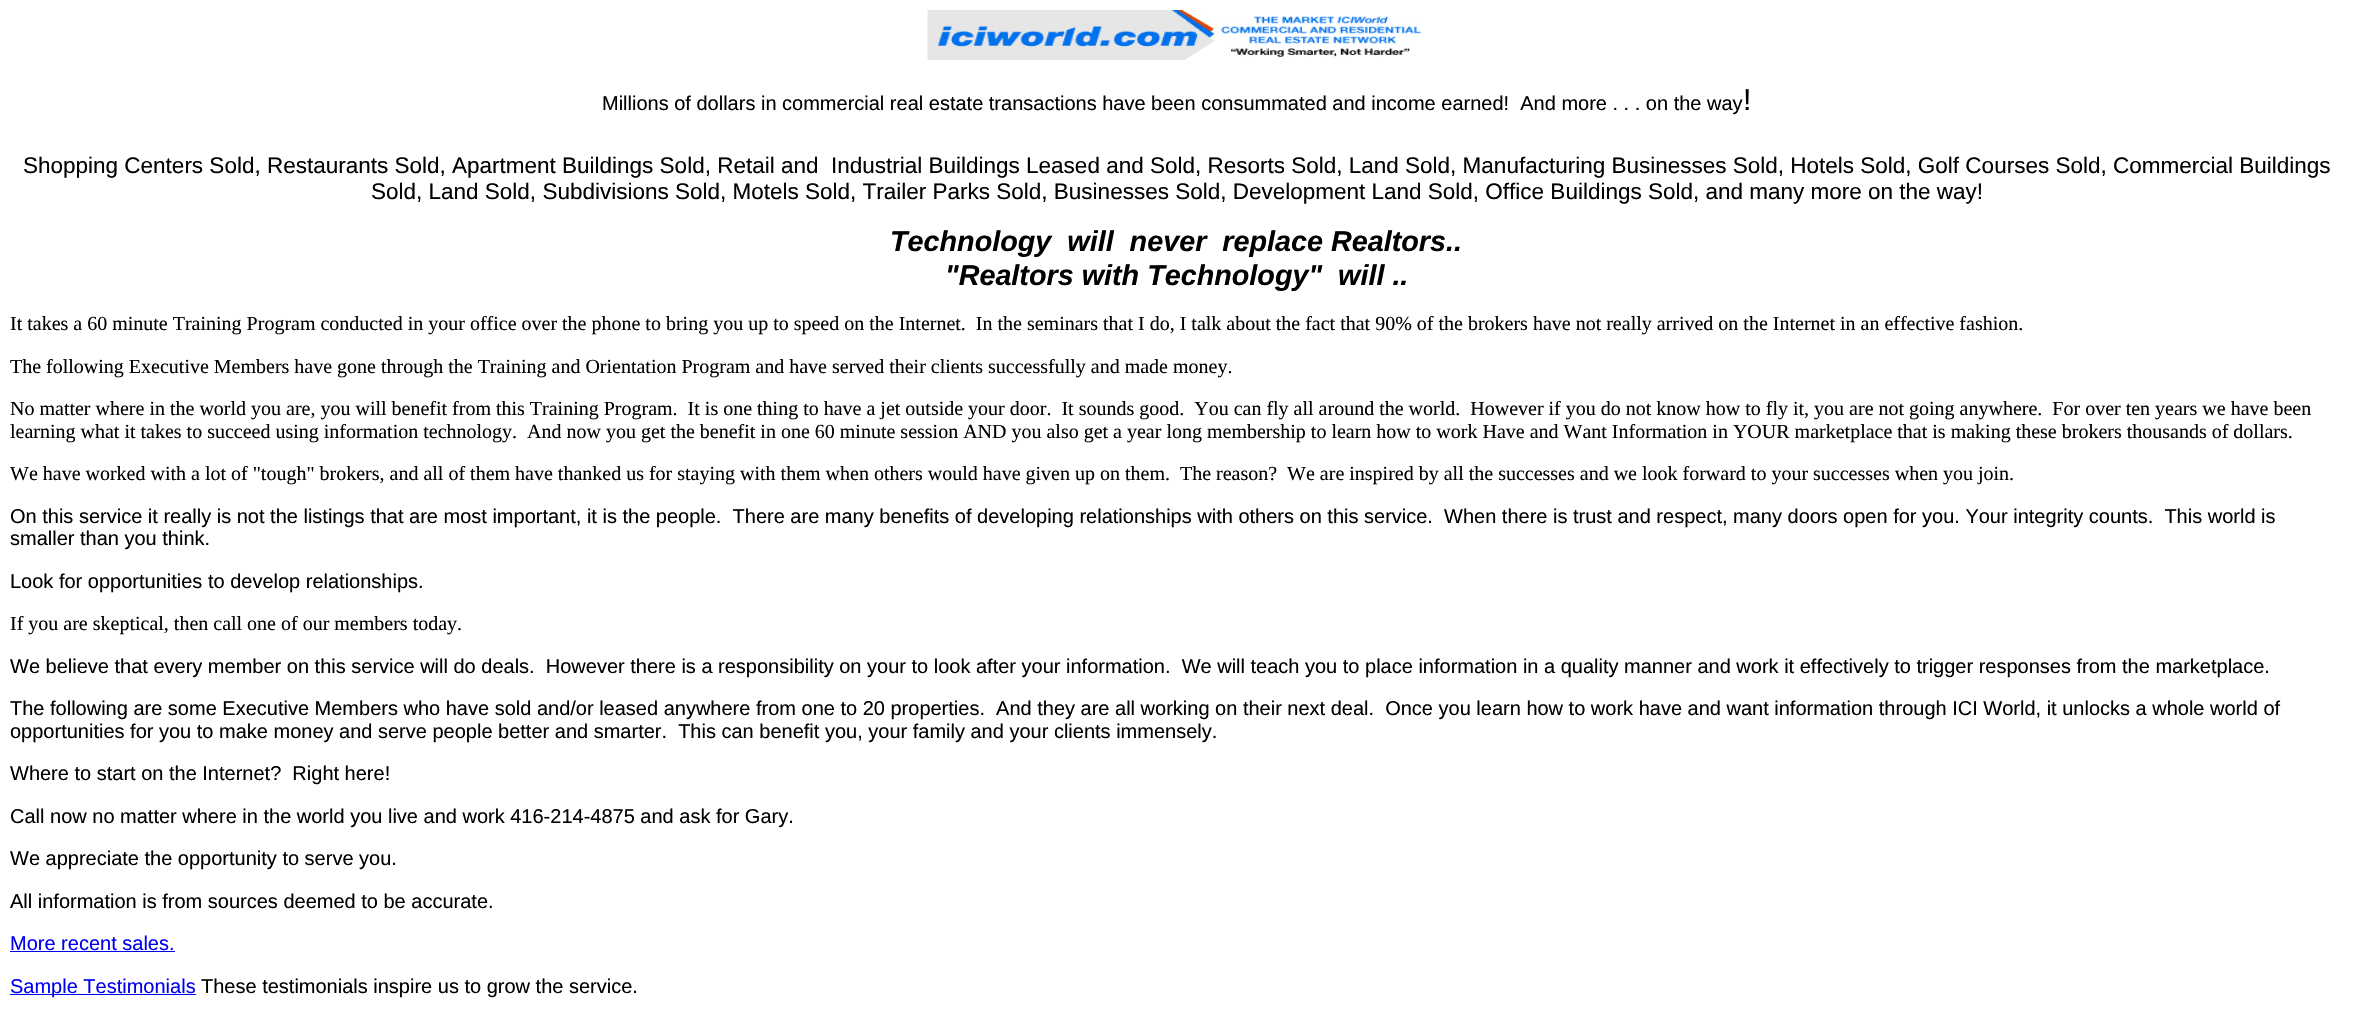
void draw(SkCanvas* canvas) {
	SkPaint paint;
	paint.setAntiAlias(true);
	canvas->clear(0xffffffff);
	canvas->drawImageRect(SkImages::DeferredFromEncodedData(SkData::MakeFromFileName("img1.png")), SkRect::MakeXYWH(927, 10, 495, 50), SkSamplingOptions());
	SkFont f1(fontMgr->matchFamilyStyle("Liberation Sans", SkFontStyle::Normal()), 20);
	f1.setSubpixel(true);
	paint.setColor(0xff000000);
	canvas->drawString("Millions of dollars in commercial real estate transactions have been consummated and income earned!  And more . . . on the way", 602, 110, f1, paint);
	SkFont f2(fontMgr->matchFamilyStyle("Liberation Sans", SkFontStyle::Normal()), 30);
	f2.setSubpixel(true);
	canvas->drawString("!", 1743, 110, f2, paint);
	SkFont f3(fontMgr->matchFamilyStyle("Liberation Sans", SkFontStyle::Normal()), 22.5);
	f3.setSubpixel(true);
	canvas->drawString("Shopping Centers Sold, Restaurants Sold, Apartment Buildings Sold, Retail and  Industrial Buildings Leased and Sold, Resorts Sold, Land Sold, Manufacturing Businesses Sold, Hotels Sold, Golf Courses Sold, Commercial Buildings", 23, 173, f3, paint);
	canvas->drawString("Sold, Land Sold, Subdivisions Sold, Motels Sold, Trailer Parks Sold, Businesses Sold, Development Land Sold, Office Buildings Sold, and many more on the way!", 371, 199, f3, paint);
	SkFont f4(fontMgr->matchFamilyStyle("Liberation Sans", SkFontStyle::BoldItalic()), 28.75);
	f4.setSubpixel(true);
	canvas->drawString("Technology  will  never  replace Realtors..", 890, 251, f4, paint);
	canvas->drawString("\"Realtors with Technology\"  will ..", 945, 285, f4, paint);
	SkFont f5(fontMgr->matchFamilyStyle("Liberation Serif", SkFontStyle::Normal()), 20);
	f5.setSubpixel(true);
	canvas->drawString("It takes a 60 minute Training Program conducted in your office over the phone to bring you up to speed on the Internet.  In the seminars that I do, I talk about the fact that 90% of the brokers have not really arrived on the Internet in an effective fashion.", 10, 330, f5, paint);
	canvas->drawString("The following Executive Members have gone through the Training and Orientation Program and have served their clients successfully and made money.", 10, 373, f5, paint);
	canvas->drawString("No matter where in the world you are, you will benefit from this Training Program.  It is one thing to have a jet outside your door.  It sounds good.  You can fly all around the world.  However if you do not know how to fly it, you are not going anywhere.  For over ten years we have been", 10, 415, f5, paint);
	canvas->drawString("learning what it takes to succeed using information technology.  And now you get the benefit in one 60 minute session AND you also get a year long membership to learn how to work Have and Want Information in YOUR marketplace that is making these brokers thousands of dollars.", 10, 438, f5, paint);
	canvas->drawString("We have worked with a lot of \"tough\" brokers, and all of them have thanked us for staying with them when others would have given up on them.  The reason?  We are inspired by all the successes and we look forward to your successes when you join.", 10, 480, f5, paint);
	canvas->drawString("On this service it really is not the listings that are most important, it is the people.  There are many benefits of developing relationships with others on this service.  When there is trust and respect, many doors open for you. Your integrity counts.  This world is", 10, 523, f1, paint);
	canvas->drawString("smaller than you think.", 10, 545, f1, paint);
	canvas->drawString("Look for opportunities to develop relationships.", 10, 588, f1, paint);
	canvas->drawString("If you are skeptical, then call one of our members today.", 10, 630, f5, paint);
	canvas->drawString("We believe that every member on this service will do deals.  However there is a responsibility on your to look after your information.  We will teach you to place information in a quality manner and work it effectively to trigger responses from the marketplace.", 10, 673, f1, paint);
	canvas->drawString("The following are some Executive Members who have sold and/or leased anywhere from one to 20 properties.  And they are all working on their next deal.  Once you learn how to work have and want information through ICI World, it unlocks a whole world of", 10, 715, f1, paint);
	canvas->drawString("opportunities for you to make money and serve people better and smarter.  This can benefit you, your family and your clients immensely.", 10, 738, f1, paint);
	canvas->drawString("Where to start on the Internet?  Right here!", 10, 780, f1, paint);
	canvas->drawString("Call now no matter where in the world you live and work 416-214-4875 and ask for Gary.", 10, 823, f1, paint);
	canvas->drawString("We appreciate the opportunity to serve you.", 10, 865, f1, paint);
	canvas->drawString("All information is from sources deemed to be accurate.", 10, 908, f1, paint);
	paint.setColor(0xff0000ee);
	canvas->drawString("More recent sales.", 10, 950, f1, paint);
	canvas->drawRect(SkRect::MakeXYWH(10, 951, 165, 1), paint);
	canvas->drawRect(SkRect::MakeXYWH(10, 994, 186, 1), paint);
	canvas->drawString("Sample Testimonials", 10, 993, f1, paint);
	paint.setColor(0xff000000);
	canvas->drawString("These testimonials inspire us to grow the service.", 201, 993, f1, paint);
}
